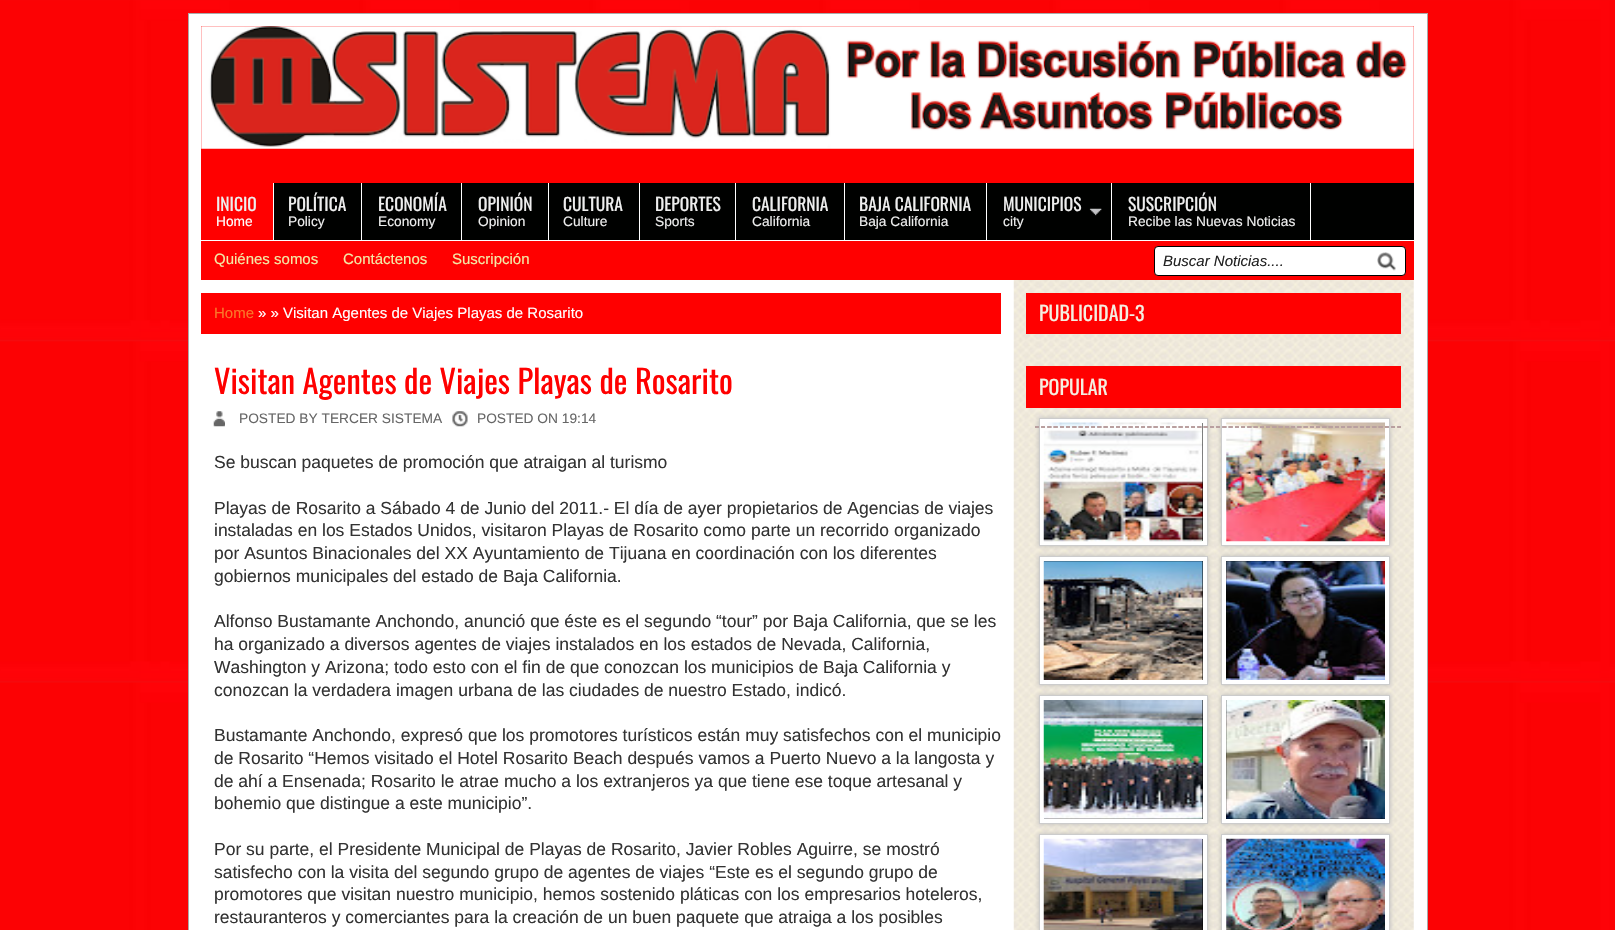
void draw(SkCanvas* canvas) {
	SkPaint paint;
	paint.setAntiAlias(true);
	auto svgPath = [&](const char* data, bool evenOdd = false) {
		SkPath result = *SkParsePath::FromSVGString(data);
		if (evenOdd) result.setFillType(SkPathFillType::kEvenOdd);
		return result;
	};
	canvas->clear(0xffffffff);
	canvas->drawImageRect(SkImages::DeferredFromEncodedData(SkData::MakeFromFileName("img1.png")), SkRect::MakeXYWH(0, 0, 1615, 930), SkSamplingOptions());
	paint.setColor(0xffffffff);
	canvas->drawRect(SkRect::MakeXYWH(188.5, 13.5, 1239, 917), paint);
	paint.setStroke(true);
	paint.setStrokeWidth(1);
	paint.setColor(0xffaaaaaa);
	canvas->drawRect(SkRect::MakeXYWH(188.5, 13.5, 1239, 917), paint);
	paint.setStroke(false);
	paint.setColor(0xffff0000);
	canvas->drawRect(SkRect::MakeXYWH(201, 26, 1213, 157), paint);
	canvas->drawImageRect(SkImages::DeferredFromEncodedData(SkData::MakeFromFileName("img2.png")), SkRect::MakeXYWH(201, 26, 1213, 123), SkSamplingOptions());
	paint.setColor(0xff000100);
	canvas->drawRect(SkRect::MakeXYWH(274, 183, 1140, 57), paint);
	paint.setColor(0xffff0000);
	canvas->drawRect(SkRect::MakeXYWH(201, 183, 72, 57), paint);
	SkFont f1(fontMgr->matchFamilyStyle("Oswald", SkFontStyle::Normal()), 17.5);
	f1.setSubpixel(true);
	paint.setColor(0xffeeeeee);
	canvas->drawString("INICIO", 216, 211, f1, paint);
	SkFont f2(fontMgr->matchFamilyStyle("Liberation Sans", SkFontStyle::Normal()), 13.75);
	f2.setSubpixel(true);
	paint.setColor(0xffffffff);
	canvas->drawString("Home", 216, 226, f2, paint);
	canvas->drawRect(SkRect::MakeXYWH(361, 183, 1, 57), paint);
	paint.setColor(0xffeeeeee);
	canvas->drawString("POLÍTICA", 288, 211, f1, paint);
	canvas->drawString("Policy", 288, 226, f2, paint);
	paint.setColor(0xffffffff);
	canvas->drawRect(SkRect::MakeXYWH(461, 183, 1, 57), paint);
	paint.setColor(0xffeeeeee);
	canvas->drawString("ECONOMÍA", 378, 211, f1, paint);
	canvas->drawString("Economy", 378, 226, f2, paint);
	paint.setColor(0xffffffff);
	canvas->drawRect(SkRect::MakeXYWH(548, 183, 1, 57), paint);
	paint.setColor(0xffeeeeee);
	canvas->drawString("OPINIÓN", 478, 211, f1, paint);
	canvas->drawString("Opinion", 478, 226, f2, paint);
	paint.setColor(0xffffffff);
	canvas->drawRect(SkRect::MakeXYWH(639, 183, 1, 57), paint);
	paint.setColor(0xffeeeeee);
	canvas->drawString("CULTURA", 563, 211, f1, paint);
	canvas->drawString("Culture", 563, 226, f2, paint);
	paint.setColor(0xffffffff);
	canvas->drawRect(SkRect::MakeXYWH(735, 183, 1, 57), paint);
	paint.setColor(0xffeeeeee);
	canvas->drawString("DEPORTES", 655, 211, f1, paint);
	canvas->drawString("Sports", 655, 226, f2, paint);
	paint.setColor(0xffffffff);
	canvas->drawRect(SkRect::MakeXYWH(844, 183, 1, 57), paint);
	paint.setColor(0xffeeeeee);
	canvas->drawString("CALIFORNIA", 752, 211, f1, paint);
	canvas->drawString("California", 752, 226, f2, paint);
	paint.setColor(0xffffffff);
	canvas->drawRect(SkRect::MakeXYWH(986, 183, 1, 57), paint);
	paint.setColor(0xffeeeeee);
	canvas->drawString("BAJA CALIFORNIA", 859, 211, f1, paint);
	canvas->drawString("Baja California", 859, 226, f2, paint);
	canvas->drawImageRect(SkImages::DeferredFromEncodedData(SkData::MakeFromFileName("img3.png")), SkRect::MakeXYWH(1089, 208, 13, 8), SkSamplingOptions());
	paint.setColor(0xffffffff);
	canvas->drawRect(SkRect::MakeXYWH(1111, 183, 1, 57), paint);
	paint.setColor(0xffeeeeee);
	canvas->drawString("MUNICIPIOS", 1003, 211, f1, paint);
	canvas->drawString("city", 1003, 226, f2, paint);
	paint.setColor(0xffffffff);
	canvas->drawRect(SkRect::MakeXYWH(1310, 183, 1, 57), paint);
	paint.setColor(0xffeeeeee);
	canvas->drawString("SUSCRIPCIÓN", 1128, 211, f1, paint);
	canvas->drawString("Recibe las Nuevas Noticias", 1128, 226, f2, paint);
	paint.setColor(0xffff0000);
	canvas->drawRect(SkRect::MakeXYWH(201, 241, 1213, 39), paint);
	SkFont f3(fontMgr->matchFamilyStyle("Liberation Sans", SkFontStyle::Normal()), 15);
	f3.setSubpixel(true);
	paint.setColor(0xfff4eaa6);
	canvas->drawString("Quiénes somos", 214, 264, f3, paint);
	canvas->drawString("Contáctenos", 343, 264, f3, paint);
	canvas->drawString("Suscripción", 452, 264, f3, paint);
	paint.setColor(0xffffffff);
	canvas->drawRoundRect(SkRect::MakeXYWH(1154.5, 246.5, 251, 29), 3.5, 3.5, paint);
	paint.setStroke(true);
	paint.setColor(0xff000000);
	canvas->drawRoundRect(SkRect::MakeXYWH(1154.5, 246.5, 251, 29), 3.5, 3.5, paint);
	SkFont f4(fontMgr->matchFamilyStyle("Liberation Sans", SkFontStyle::Italic()), 15);
	f4.setSubpixel(true);
	paint.setStroke(false);
	paint.setColor(0xff222222);
	canvas->drawString("Buscar Noticias....", 1163, 266, f4, paint);
	canvas->drawImageRect(SkImages::DeferredFromEncodedData(SkData::MakeFromFileName("img4.png")), SkRect::MakeXYWH(1377, 252, 19, 19), SkSamplingOptions());
	paint.setColor(0xffff0000);
	canvas->drawRect(SkRect::MakeXYWH(201, 293, 800, 41), paint);
	paint.setColor(0xfffa7829);
	canvas->drawString("Home", 214, 318, f3, paint);
	paint.setColor(0xffffffff);
	canvas->drawString("» » Visitan Agentes de Viajes Playas de Rosarito", 258, 318, f3, paint);
	SkFont f5(fontMgr->matchFamilyStyle("Oswald", SkFontStyle::Normal()), 32.5);
	f5.setSubpixel(true);
	paint.setColor(0xffff0000);
	canvas->drawString("Visitan Agentes de Viajes Playas de Rosarito", 214, 394, f5, paint);
	canvas->drawImageRect(SkImages::DeferredFromEncodedData(SkData::MakeFromFileName("img5.png")), SkRect::MakeXYWH(213, 411, 12, 16), SkSamplingOptions());
	paint.setColor(0xff666666);
	canvas->drawString("POSTED BY TERCER SISTEMA", 239, 423, f2, paint);
	canvas->drawImageRect(SkImages::DeferredFromEncodedData(SkData::MakeFromFileName("img6.png")), SkRect::MakeXYWH(452, 411, 16, 16), SkSamplingOptions());
	canvas->drawString("POSTED ON 19:14", 477, 423, f2, paint);
	SkFont f6(fontMgr->matchFamilyStyle("Liberation Sans", SkFontStyle::Normal()), 17.5);
	f6.setSubpixel(true);
	paint.setColor(0xff333333);
	canvas->drawString("Se buscan paquetes de promoción que atraigan al turismo", 214, 468, f6, paint);
	canvas->drawString("Playas de Rosarito a Sábado 4 de Junio del 2011.- El día de ayer propietarios de Agencias de viajes", 214, 514, f6, paint);
	canvas->drawString("instaladas en los Estados Unidos, visitaron Playas de Rosarito como parte un recorrido organizado", 214, 536, f6, paint);
	canvas->drawString("por Asuntos Binacionales del XX Ayuntamiento de Tijuana en coordinación con los diferentes", 214, 559, f6, paint);
	canvas->drawString("gobiernos municipales del estado de Baja California.", 214, 582, f6, paint);
	canvas->drawString("Alfonso Bustamante Anchondo, anunció que éste es el segundo “tour” por Baja California, que se les", 214, 627, f6, paint);
	canvas->drawString("ha organizado a diversos agentes de viajes instalados en los estados de Nevada, California,", 214, 650, f6, paint);
	canvas->drawString("Washington y Arizona; todo esto con el fin de que conozcan los municipios de Baja California y", 214, 673, f6, paint);
	canvas->drawString("conozcan la verdadera imagen urbana de las ciudades de nuestro Estado, indicó.", 214, 696, f6, paint);
	canvas->drawString("Bustamante Anchondo, expresó que los promotores turísticos están muy satisfechos con el municipio", 214, 741, f6, paint);
	canvas->drawString("de Rosarito “Hemos visitado el Hotel Rosarito Beach después vamos a Puerto Nuevo a la langosta y", 214, 764, f6, paint);
	canvas->drawString("de ahí a Ensenada; Rosarito le atrae mucho a los extranjeros ya que tiene ese toque artesanal y", 214, 787, f6, paint);
	canvas->drawString("bohemio que distingue a este municipio”.", 214, 809, f6, paint);
	canvas->drawString("Por su parte, el Presidente Municipal de Playas de Rosarito, Javier Robles Aguirre, se mostró", 214, 855, f6, paint);
	canvas->drawString("satisfecho con la visita del segundo grupo de agentes de viajes “Este es el segundo grupo de", 214, 878, f6, paint);
	canvas->drawString("promotores que visitan nuestro municipio, hemos sostenido pláticas con los empresarios hoteleros,", 214, 900, f6, paint);
	canvas->drawString("restauranteros y comerciantes para la creación de un buen paquete que atraiga a los posibles", 214, 923, f6, paint);
	canvas->drawImageRect(SkImages::DeferredFromEncodedData(SkData::MakeFromFileName("img7.png")), SkRect::MakeXYWH(1013, 280, 401, 650), SkSamplingOptions());
	paint.setColor(0xffff0000);
	canvas->drawRect(SkRect::MakeXYWH(1026, 293, 375, 41), paint);
	SkFont f7(fontMgr->matchFamilyStyle("Oswald", SkFontStyle::Normal()), 20);
	f7.setSubpixel(true);
	paint.setColor(0xfff5efe1);
	canvas->drawString("PUBLICIDAD-3", 1039, 321, f7, paint);
	paint.setColor(0xffff0000);
	canvas->drawRect(SkRect::MakeXYWH(1026, 366, 375, 42), paint);
	paint.setColor(0xfff5efe1);
	canvas->drawString("POPULAR", 1039, 395, f7, paint);
	paint.setColor(0xffbbbbbb);
	paint.setMaskFilter(SkMaskFilter::MakeBlur(kNormal_SkBlurStyle, 2.5));
	canvas->drawRect(SkRect::MakeXYWH(1039, 418, 169, 128), paint);
	paint.setMaskFilter(nullptr);
	paint.setColor(0xffffffff);
	canvas->drawRect(SkRect::MakeXYWH(1039.5, 418.5, 168, 127), paint);
	paint.setStroke(true);
	paint.setColor(0xffcccccc);
	canvas->drawRect(SkRect::MakeXYWH(1039.5, 418.5, 168, 127), paint);
	paint.setStroke(false);
	paint.setColor(0xff000000);
	canvas->drawRect(SkRect::MakeXYWH(1202, 423, 1, 118), paint);
	canvas->drawImageRect(SkImages::DeferredFromEncodedData(SkData::MakeFromFileName("img8.png")), SkRect::MakeXYWH(1043, 422, 160, 120), SkSamplingOptions());
	paint.setColor(0xffbbbbbb);
	paint.setMaskFilter(SkMaskFilter::MakeBlur(kNormal_SkBlurStyle, 2.5));
	canvas->drawRect(SkRect::MakeXYWH(1221, 418, 169, 128), paint);
	paint.setMaskFilter(nullptr);
	paint.setColor(0xffffffff);
	canvas->drawRect(SkRect::MakeXYWH(1221.5, 418.5, 168, 127), paint);
	paint.setStroke(true);
	paint.setColor(0xffcccccc);
	canvas->drawRect(SkRect::MakeXYWH(1221.5, 418.5, 168, 127), paint);
	canvas->drawImageRect(SkImages::DeferredFromEncodedData(SkData::MakeFromFileName("img9.png")), SkRect::MakeXYWH(1226, 422, 159, 120), SkSamplingOptions());
	paint.setStrokeWidth(1.2);
	paint.setColor(0xffb99f9f);
	paint.setPathEffect(SkDashPathEffect::Make({{3.75f, 2.5f}}, 0));
	canvas->drawPath(svgPath("M1035 427H1401"), paint);
	paint.setPathEffect(nullptr);
	paint.setPathEffect(SkDashPathEffect::Make({{3.75f, 2.5f}}, 0));
	canvas->drawPath(svgPath("M1035 427H1401"), paint);
	paint.setPathEffect(nullptr);
	paint.setPathEffect(SkDashPathEffect::Make({{3.75f, 2.5f}}, 0));
	canvas->drawPath(svgPath("M1035 427H1401"), paint);
	paint.setPathEffect(nullptr);
	paint.setStroke(false);
	paint.setColor(0xffbbbbbb);
	paint.setMaskFilter(SkMaskFilter::MakeBlur(kNormal_SkBlurStyle, 2.5));
	canvas->drawRect(SkRect::MakeXYWH(1039, 556, 169, 129), paint);
	paint.setMaskFilter(nullptr);
	paint.setColor(0xffffffff);
	canvas->drawRect(SkRect::MakeXYWH(1039.5, 556.5, 168, 128), paint);
	paint.setStroke(true);
	paint.setStrokeWidth(1);
	paint.setColor(0xffcccccc);
	canvas->drawRect(SkRect::MakeXYWH(1039.5, 556.5, 168, 128), paint);
	paint.setStroke(false);
	paint.setColor(0xff000000);
	canvas->drawRect(SkRect::MakeXYWH(1044, 561, 159, 119), paint);
	canvas->drawImageRect(SkImages::DeferredFromEncodedData(SkData::MakeFromFileName("img10.png")), SkRect::MakeXYWH(1043, 561, 160, 119), SkSamplingOptions());
	paint.setStroke(true);
	paint.setStrokeWidth(1.2);
	paint.setColor(0xffb99f9f);
	paint.setPathEffect(SkDashPathEffect::Make({{3.75f, 2.5f}}, 0));
	canvas->drawPath(svgPath("M1035 427H1401"), paint);
	paint.setPathEffect(nullptr);
	paint.setPathEffect(SkDashPathEffect::Make({{3.75f, 2.5f}}, 0));
	canvas->drawPath(svgPath("M1035 427H1401"), paint);
	paint.setPathEffect(nullptr);
	paint.setStroke(false);
	paint.setColor(0xffbbbbbb);
	paint.setMaskFilter(SkMaskFilter::MakeBlur(kNormal_SkBlurStyle, 2.5));
	canvas->drawRect(SkRect::MakeXYWH(1039, 695, 169, 129), paint);
	paint.setMaskFilter(nullptr);
	paint.setColor(0xffffffff);
	canvas->drawRect(SkRect::MakeXYWH(1039.5, 695.5, 168, 128), paint);
	paint.setStroke(true);
	paint.setStrokeWidth(1);
	paint.setColor(0xffcccccc);
	canvas->drawRect(SkRect::MakeXYWH(1039.5, 695.5, 168, 128), paint);
	paint.setStroke(false);
	paint.setColor(0xff000000);
	canvas->drawRect(SkRect::MakeXYWH(1044, 700, 159, 119), paint);
	canvas->drawImageRect(SkImages::DeferredFromEncodedData(SkData::MakeFromFileName("img11.png")), SkRect::MakeXYWH(1043, 700, 160, 119), SkSamplingOptions());
	paint.setStroke(true);
	paint.setStrokeWidth(1.2);
	paint.setColor(0xffb99f9f);
	paint.setPathEffect(SkDashPathEffect::Make({{3.75f, 2.5f}}, 0));
	canvas->drawPath(svgPath("M1035 427H1401"), paint);
	paint.setPathEffect(nullptr);
	paint.setPathEffect(SkDashPathEffect::Make({{3.75f, 2.5f}}, 0));
	canvas->drawPath(svgPath("M1035 427H1401"), paint);
	paint.setPathEffect(nullptr);
	paint.setStroke(false);
	paint.setColor(0xffbbbbbb);
	paint.setMaskFilter(SkMaskFilter::MakeBlur(kNormal_SkBlurStyle, 2.5));
	canvas->drawRect(SkRect::MakeXYWH(1039, 834, 169, 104), paint);
	paint.setMaskFilter(nullptr);
	paint.setColor(0xffffffff);
	canvas->drawRect(SkRect::MakeXYWH(1039.5, 834.5, 168, 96), paint);
	paint.setStroke(true);
	paint.setStrokeWidth(1);
	paint.setColor(0xffcccccc);
	canvas->drawRect(SkRect::MakeXYWH(1039.5, 834.5, 168, 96), paint);
	paint.setStroke(false);
	paint.setColor(0xff000000);
	canvas->drawRect(SkRect::MakeXYWH(1202, 839, 1, 91), paint);
	canvas->drawImageRect(SkImages::DeferredFromEncodedData(SkData::MakeFromFileName("img12.png")), SkRect::MakeXYWH(1043, 838, 160, 92), SkSamplingOptions());
	paint.setColor(0xffbbbbbb);
	paint.setMaskFilter(SkMaskFilter::MakeBlur(kNormal_SkBlurStyle, 2.5));
	canvas->drawRect(SkRect::MakeXYWH(1221, 556, 169, 129), paint);
	paint.setMaskFilter(nullptr);
	paint.setColor(0xffffffff);
	canvas->drawRect(SkRect::MakeXYWH(1221.5, 556.5, 168, 128), paint);
	paint.setStroke(true);
	paint.setColor(0xffcccccc);
	canvas->drawRect(SkRect::MakeXYWH(1221.5, 556.5, 168, 128), paint);
	paint.setStroke(false);
	paint.setColor(0xff000000);
	canvas->drawRect(SkRect::MakeXYWH(1226, 561, 159, 119), paint);
	canvas->drawImageRect(SkImages::DeferredFromEncodedData(SkData::MakeFromFileName("img13.png")), SkRect::MakeXYWH(1226, 561, 159, 119), SkSamplingOptions());
	paint.setColor(0xffbbbbbb);
	paint.setMaskFilter(SkMaskFilter::MakeBlur(kNormal_SkBlurStyle, 2.5));
	canvas->drawRect(SkRect::MakeXYWH(1221, 695, 169, 129), paint);
	paint.setMaskFilter(nullptr);
	paint.setColor(0xffffffff);
	canvas->drawRect(SkRect::MakeXYWH(1221.5, 695.5, 168, 128), paint);
	paint.setStroke(true);
	paint.setColor(0xffcccccc);
	canvas->drawRect(SkRect::MakeXYWH(1221.5, 695.5, 168, 128), paint);
	paint.setStroke(false);
	paint.setColor(0xff000000);
	canvas->drawRect(SkRect::MakeXYWH(1226, 700, 159, 119), paint);
	canvas->drawImageRect(SkImages::DeferredFromEncodedData(SkData::MakeFromFileName("img14.png")), SkRect::MakeXYWH(1226, 700, 159, 119), SkSamplingOptions());
	paint.setStroke(true);
	paint.setStrokeWidth(1.2);
	paint.setColor(0xffb99f9f);
	paint.setPathEffect(SkDashPathEffect::Make({{3.75f, 2.5f}}, 0));
	canvas->drawPath(svgPath("M1035 427H1401"), paint);
	paint.setPathEffect(nullptr);
	paint.setStroke(false);
	paint.setColor(0xffbbbbbb);
	paint.setMaskFilter(SkMaskFilter::MakeBlur(kNormal_SkBlurStyle, 2.5));
	canvas->drawRect(SkRect::MakeXYWH(1221, 834, 169, 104), paint);
	paint.setMaskFilter(nullptr);
	paint.setColor(0xffffffff);
	canvas->drawRect(SkRect::MakeXYWH(1221.5, 834.5, 168, 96), paint);
	paint.setStroke(true);
	paint.setStrokeWidth(1);
	paint.setColor(0xffcccccc);
	canvas->drawRect(SkRect::MakeXYWH(1221.5, 834.5, 168, 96), paint);
	canvas->drawImageRect(SkImages::DeferredFromEncodedData(SkData::MakeFromFileName("img15.png")), SkRect::MakeXYWH(1226, 838, 159, 92), SkSamplingOptions());
}
